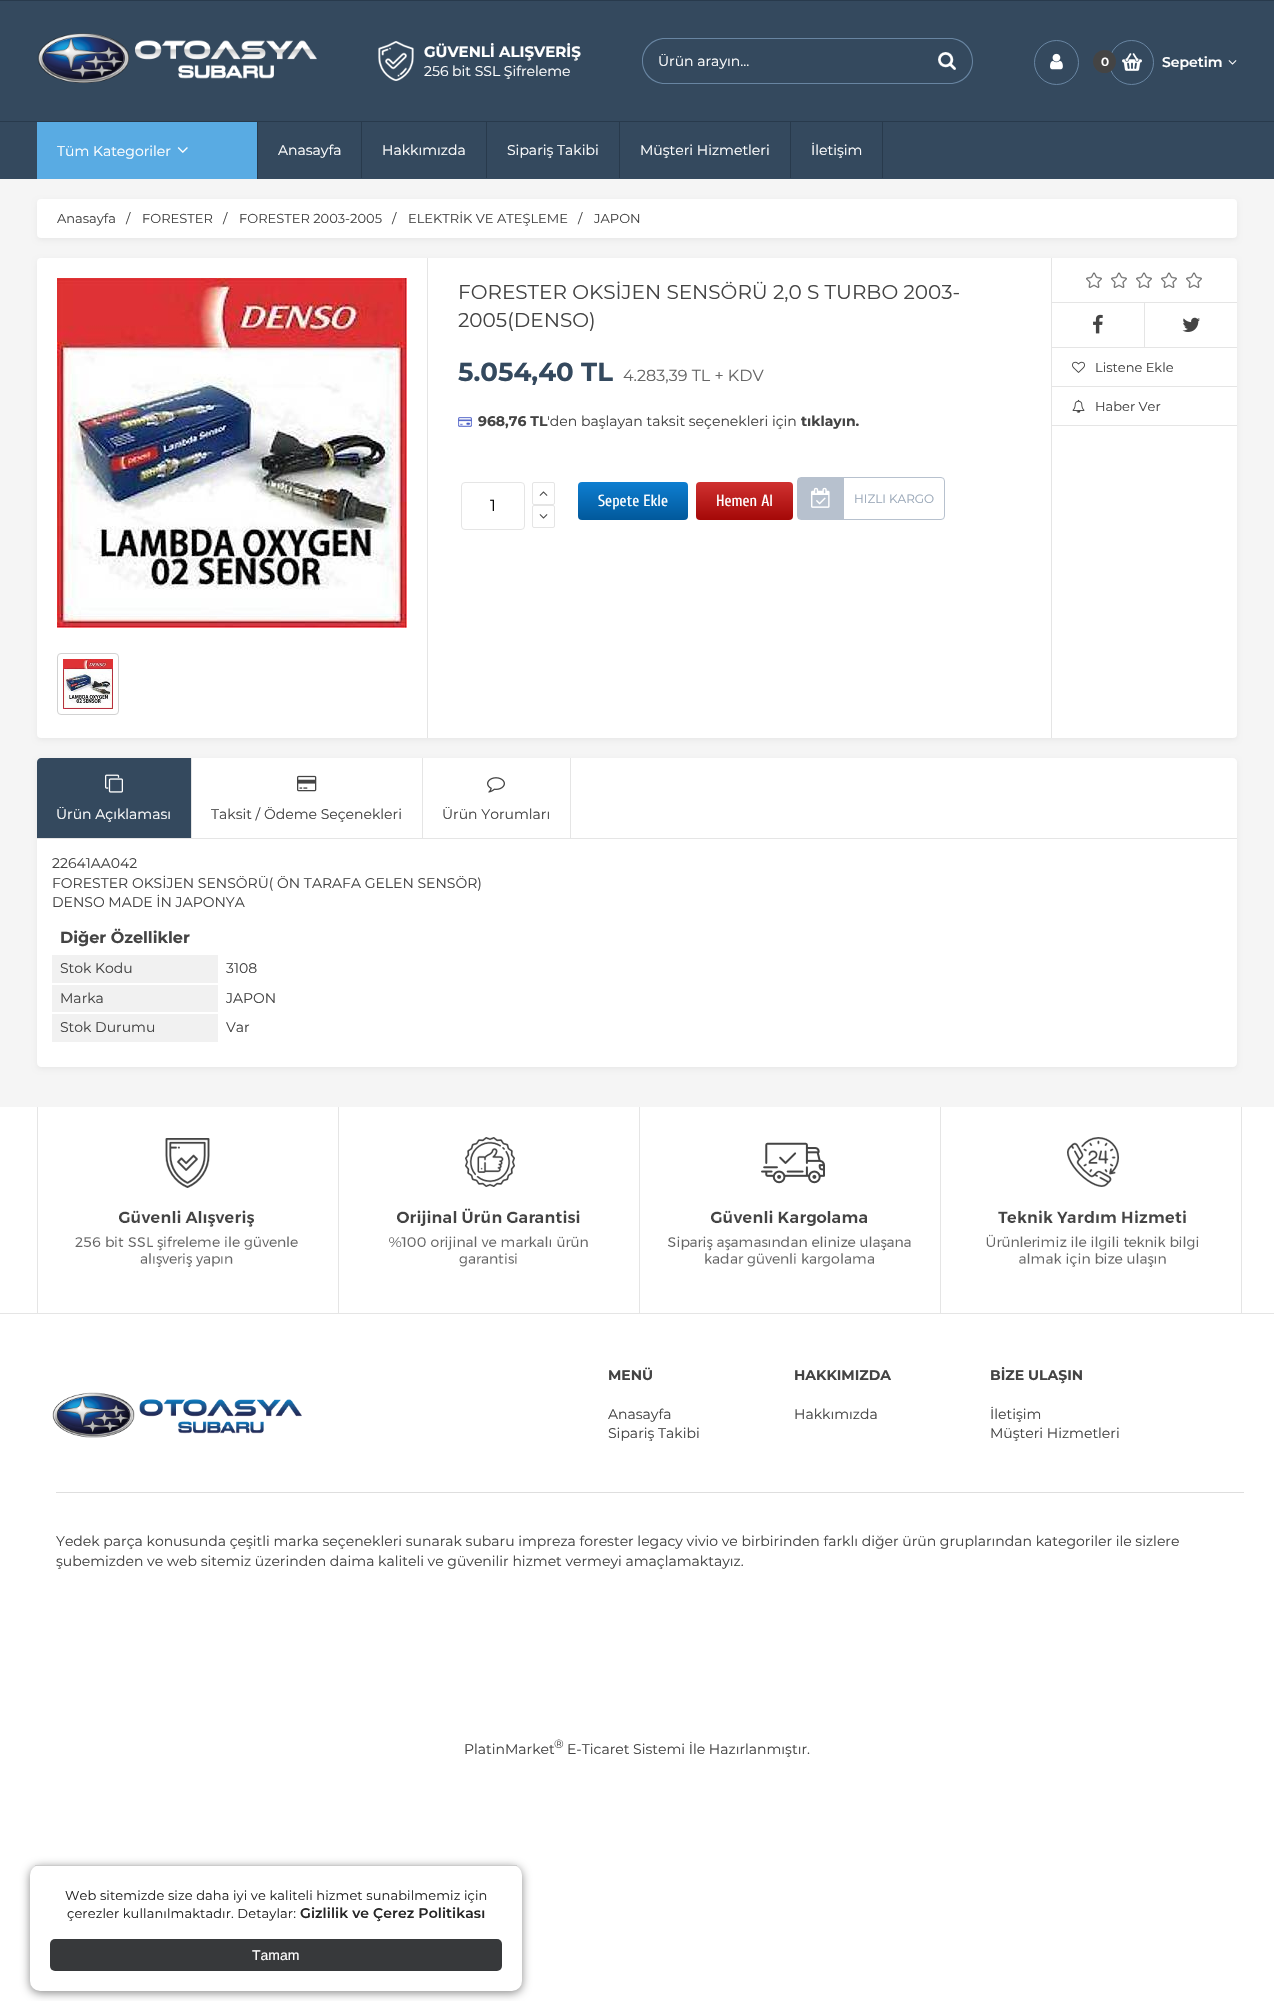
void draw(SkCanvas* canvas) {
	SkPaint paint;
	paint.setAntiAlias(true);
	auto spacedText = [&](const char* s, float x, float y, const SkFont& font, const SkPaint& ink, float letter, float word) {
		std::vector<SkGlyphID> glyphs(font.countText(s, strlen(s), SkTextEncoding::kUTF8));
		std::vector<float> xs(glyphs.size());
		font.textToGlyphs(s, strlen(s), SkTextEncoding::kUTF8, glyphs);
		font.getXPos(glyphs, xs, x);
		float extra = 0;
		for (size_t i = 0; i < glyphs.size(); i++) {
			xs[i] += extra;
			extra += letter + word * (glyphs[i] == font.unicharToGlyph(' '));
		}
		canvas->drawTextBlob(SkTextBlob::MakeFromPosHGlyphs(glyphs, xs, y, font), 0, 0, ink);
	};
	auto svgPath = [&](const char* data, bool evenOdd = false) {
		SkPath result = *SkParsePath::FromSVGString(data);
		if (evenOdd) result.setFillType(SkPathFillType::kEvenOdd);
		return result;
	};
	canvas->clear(0xffffffff);
	paint.setColor(0xfff5f5f5);
	canvas->drawRect(SkRect::MakeXYWH(0, 179, 1274, 928), paint);
	paint.setColor(0xff34495e);
	canvas->drawRect(SkRect::MakeXYWH(0, 1, 1274, 178), paint);
	paint.setColor(0xff283a4c);
	canvas->drawRect(SkRect::MakeXYWH(0, 0, 1274, 1), paint);
	canvas->drawImageRect(SkImages::DeferredFromEncodedData(SkData::MakeFromFileName("img1.png")), SkRect::MakeXYWH(37, 33, 280, 50), SkSamplingOptions());
	canvas->drawImageRect(SkImages::DeferredFromEncodedData(SkData::MakeFromFileName("img2.png")), SkRect::MakeXYWH(378, 41, 36, 40), SkSamplingOptions());
	SkFont f1(fontMgr->matchFamilyStyle("Montserrat", SkFontStyle::Bold()), 15);
	f1.setSubpixel(true);
	paint.setColor(0xffffffff);
	canvas->drawString("GÜVENLİ ALIŞVERİŞ", 424, 57, f1, paint);
	SkFont f2(fontMgr->matchFamilyStyle("Montserrat", SkFontStyle::Normal()), 14);
	f2.setSubpixel(true);
	canvas->drawString("256 bit SSL Şifreleme", 424, 76, f2, paint);
	paint.setColor(0xff6885a2);
	canvas->drawPath(svgPath("M665 38H922V84H665C652 84 642 74 642 61C642 48 652 38 665 38ZM665 39H922V83H665C653 83 643 73 643 61C643 49 653 39 665 39Z", true), paint);
	paint.setColor(0xffffffff);
	canvas->drawString("Ürün arayın...", 658, 66, f2, paint);
	canvas->drawImageRect(SkImages::DeferredFromEncodedData(SkData::MakeFromFileName("img3.png")), SkRect::MakeXYWH(938, 52, 18, 18), SkSamplingOptions());
	paint.setColor(0xff6885a2);
	canvas->drawPath(svgPath("M922 38H950C963 38 973 48 973 61C973 74 963 84 950 84H922ZM922 39H950C962 39 972 49 972 61C972 73 962 83 950 83H922Z", true), paint);
	paint.setStroke(true);
	paint.setStrokeWidth(1);
	canvas->drawCircle(1056.5, 62.5, 22, paint);
	canvas->drawImageRect(SkImages::DeferredFromEncodedData(SkData::MakeFromFileName("img4.png")), SkRect::MakeXYWH(1050, 53, 13, 17), SkSamplingOptions());
	canvas->drawImageRect(SkImages::DeferredFromEncodedData(SkData::MakeFromFileName("img5.png")), SkRect::MakeXYWH(1122, 53, 20, 18), SkSamplingOptions());
	canvas->drawCircle(1131.5, 62.5, 22, paint);
	paint.setStroke(false);
	paint.setColor(0xff444444);
	canvas->drawCircle(1104.5, 61.5, 11.5, paint);
	SkFont f3(fontMgr->matchFamilyStyle("Montserrat", SkFontStyle(600, SkFontStyle::kNormal_Width, SkFontStyle::kUpright_Slant)), 12);
	f3.setSubpixel(true);
	paint.setColor(0xffffffff);
	canvas->drawString("0", 1101, 66, f3, paint);
	SkFont f4(fontMgr->matchFamilyStyle("Montserrat", SkFontStyle(600, SkFontStyle::kNormal_Width, SkFontStyle::kUpright_Slant)), 14);
	f4.setSubpixel(true);
	canvas->drawString("Sepetim", 1162, 67, f4, paint);
	canvas->drawImageRect(SkImages::DeferredFromEncodedData(SkData::MakeFromFileName("img6.png")), SkRect::MakeXYWH(1228, 60, 9, 5), SkSamplingOptions());
	paint.setColor(0xff283a4c);
	canvas->drawRect(SkRect::MakeXYWH(0, 121, 1274, 1), paint);
	canvas->drawRect(SkRect::MakeXYWH(257, 122, 1, 57), paint);
	paint.setColor(0xff59abe3);
	canvas->drawRect(SkRect::MakeXYWH(37, 122, 220, 57), paint);
	paint.setColor(0xffffffff);
	canvas->drawString("Tüm Kategoriler", 57, 156, f2, paint);
	canvas->drawImageRect(SkImages::DeferredFromEncodedData(SkData::MakeFromFileName("img7.png")), SkRect::MakeXYWH(177, 147, 11, 6), SkSamplingOptions());
	paint.setColor(0xff283a4c);
	canvas->drawRect(SkRect::MakeXYWH(361, 122, 1, 56), paint);
	paint.setColor(0xffffffff);
	canvas->drawString("Anasayfa", 278, 155, f2, paint);
	paint.setColor(0xff283a4c);
	canvas->drawRect(SkRect::MakeXYWH(486, 122, 1, 56), paint);
	paint.setColor(0xffffffff);
	canvas->drawString("Hakkımızda", 382, 155, f2, paint);
	paint.setColor(0xff283a4c);
	canvas->drawRect(SkRect::MakeXYWH(619, 122, 1, 56), paint);
	paint.setColor(0xffffffff);
	canvas->drawString("Sipariş Takibi", 507, 155, f2, paint);
	paint.setColor(0xff283a4c);
	canvas->drawRect(SkRect::MakeXYWH(790, 122, 1, 56), paint);
	paint.setColor(0xffffffff);
	canvas->drawString("Müşteri Hizmetleri", 640, 155, f2, paint);
	paint.setColor(0xff283a4c);
	canvas->drawRect(SkRect::MakeXYWH(882, 122, 1, 56), paint);
	paint.setColor(0xffffffff);
	canvas->drawString("İletişim", 811, 155, f2, paint);
	paint.setColor(0xff888888);
	paint.setMaskFilter(SkMaskFilter::MakeBlur(kNormal_SkBlurStyle, 5));
	canvas->drawRoundRect(SkRect::MakeXYWH(30, 1867, 492, 126), 10, 10, paint);
	paint.setMaskFilter(nullptr);
	paint.setColor(0xffffffff);
	canvas->drawRoundRect(SkRect::MakeXYWH(30, 1865, 492, 126), 10, 10, paint);
	paint.setColor(0xffcccccc);
	canvas->drawRect(SkRect::MakeXYWH(35, 1865, 482, 1), paint);
	SkFont f5(fontMgr->matchFamilyStyle("Montserrat", SkFontStyle::Normal()), 13);
	f5.setSubpixel(true);
	paint.setColor(0xff262626);
	spacedText("Web sitemizde size daha iyi ve kaliteli hizmet sunabilmemiz için", 65, 1900, f5, paint, 0.1, 0);
	spacedText("çerezler kullanılmaktadır. Detaylar:", 67, 1918, f5, paint, 0.1, 0);
	spacedText("Gizlilik ve Çerez Politikası", 300, 1918, f4, paint, 0.1, 0);
	paint.setColor(0xff37393b);
	canvas->drawRoundRect(SkRect::MakeXYWH(50, 1939, 452, 32), 5, 5, paint);
	SkFont f6(fontMgr->matchFamilyStyle("Liberation Sans", SkFontStyle::Normal()), 14);
	f6.setSubpixel(true);
	paint.setColor(0xffffffff);
	canvas->drawString("Tamam", 252, 1960, f6, paint);
	paint.setColor(0x0d000000);
	paint.setMaskFilter(SkMaskFilter::MakeBlur(kNormal_SkBlurStyle, 2.5));
	canvas->drawRoundRect(SkRect::MakeXYWH(37, 201, 1200, 39), 4, 4, paint);
	paint.setMaskFilter(nullptr);
	paint.setColor(0xffffffff);
	canvas->drawRoundRect(SkRect::MakeXYWH(37, 199, 1200, 39), 4, 4, paint);
	paint.setColor(0xff444444);
	canvas->drawString("Anasayfa", 57, 223, f5, paint);
	canvas->drawString("/", 126, 223, f5, paint);
	canvas->drawString("FORESTER", 142, 223, f5, paint);
	canvas->drawString("/", 223, 223, f5, paint);
	canvas->drawString("FORESTER 2003-2005", 239, 223, f5, paint);
	canvas->drawString("/", 392, 223, f5, paint);
	canvas->drawString("ELEKTRİK VE ATEŞLEME", 408, 223, f5, paint);
	canvas->drawString("/", 578, 223, f5, paint);
	canvas->drawString("JAPON", 594, 223, f5, paint);
	paint.setColor(0x0d000000);
	paint.setMaskFilter(SkMaskFilter::MakeBlur(kNormal_SkBlurStyle, 2.5));
	canvas->drawRoundRect(SkRect::MakeXYWH(37, 260, 1200, 480), 4, 4, paint);
	paint.setMaskFilter(nullptr);
	paint.setColor(0xffffffff);
	canvas->drawRoundRect(SkRect::MakeXYWH(37, 258, 1200, 480), 4, 4, paint);
	paint.setColor(0xffe5e5e5);
	canvas->drawRect(SkRect::MakeXYWH(427, 258, 1, 480), paint);
	canvas->drawImageRect(SkImages::DeferredFromEncodedData(SkData::MakeFromFileName("img8.png")), SkRect::MakeXYWH(57, 278, 350, 350), SkSamplingOptions());
	paint.setStroke(true);
	paint.setColor(0xffd2d2d2);
	canvas->drawRoundRect(SkRect::MakeXYWH(57.5, 653.5, 61, 61), 3.5, 3.5, paint);
	canvas->drawImageRect(SkImages::DeferredFromEncodedData(SkData::MakeFromFileName("img9.png")), SkRect::MakeXYWH(63, 659, 50, 50), SkSamplingOptions());
	SkFont f7(fontMgr->matchFamilyStyle("Montserrat", SkFontStyle::Normal()), 20);
	f7.setSubpixel(true);
	paint.setStroke(false);
	paint.setColor(0xff444444);
	canvas->drawString("FORESTER OKSİJEN SENSÖRÜ 2,0 S TURBO 2003-", 458, 299, f7, paint);
	canvas->drawString("2005(DENSO)", 458, 327, f7, paint);
	SkFont f8(fontMgr->matchFamilyStyle("Montserrat", SkFontStyle::Bold()), 26);
	f8.setSubpixel(true);
	paint.setColor(0xff34495e);
	canvas->drawString("5.054,40 TL", 458, 381, f8, paint);
	SkFont f9(fontMgr->matchFamilyStyle("Montserrat", SkFontStyle::Normal()), 16);
	f9.setSubpixel(true);
	paint.setColor(0xff666666);
	canvas->drawString("4.283,39 TL + KDV", 623, 381, f9, paint);
	canvas->drawImageRect(SkImages::DeferredFromEncodedData(SkData::MakeFromFileName("img10.png")), SkRect::MakeXYWH(458, 417, 14, 10), SkSamplingOptions());
	SkFont f10(fontMgr->matchFamilyStyle("Montserrat", SkFontStyle::Bold()), 14);
	f10.setSubpixel(true);
	paint.setColor(0xff444444);
	canvas->drawString("968,76 TL", 478, 426, f10, paint);
	canvas->drawString("'den başlayan taksit seçenekleri için", 547, 426, f2, paint);
	canvas->drawString("tıklayın.", 801, 426, f10, paint);
	paint.setStroke(true);
	paint.setColor(0xffe5e5e5);
	canvas->drawRoundRect(SkRect::MakeXYWH(461.5, 482.5, 63, 47), 3.5, 3.5, paint);
	paint.setStroke(false);
	paint.setColor(0xff000000);
	canvas->drawString("1", 490, 511, f9, paint);
	paint.setStroke(true);
	paint.setColor(0xffe5e5e5);
	canvas->drawRoundRect(SkRect::MakeXYWH(532.5, 482.5, 22, 22), 1.5, 1.5, paint);
	canvas->drawImageRect(SkImages::DeferredFromEncodedData(SkData::MakeFromFileName("img11.png")), SkRect::MakeXYWH(539, 491, 9, 5), SkSamplingOptions());
	canvas->drawRoundRect(SkRect::MakeXYWH(532.5, 505.5, 22, 22), 1.5, 1.5, paint);
	canvas->drawImageRect(SkImages::DeferredFromEncodedData(SkData::MakeFromFileName("img12.png")), SkRect::MakeXYWH(539, 514, 9, 5), SkSamplingOptions());
	paint.setStroke(false);
	{
		const SkColor colors[] = {0xff01599b, 0xff0e7ed1};
		const float stops[] = {0, 1};
		const SkPoint ends[] = {{633, 520}, {633, 482}};
		paint.setShader(SkGradientShader::MakeLinear(ends, colors, stops, 2, SkTileMode::kClamp));
		paint.setAlpha(255);
	}
	canvas->drawRoundRect(SkRect::MakeXYWH(578, 482, 110, 38), 4, 4, paint);
	SkFont f11(fontMgr->matchFamilyStyle("Cuprum", SkFontStyle::Normal()), 16);
	f11.setSubpixel(true);
	paint.setShader(nullptr);
	paint.setColor(0xffffffff);
	canvas->drawString("Sepete Ekle", 598, 506, f11, paint);
	{
		const SkColor colors[] = {0xffa40807, 0xffd03231};
		const float stops[] = {0, 1};
		const SkPoint ends[] = {{745, 520}, {745, 482}};
		paint.setShader(SkGradientShader::MakeLinear(ends, colors, stops, 2, SkTileMode::kClamp));
		paint.setAlpha(255);
	}
	canvas->drawRoundRect(SkRect::MakeXYWH(696, 482, 97, 38), 4, 4, paint);
	paint.setShader(nullptr);
	paint.setColor(0xffffffff);
	canvas->drawString("Hemen Al", 716, 506, f11, paint);
	paint.setStroke(true);
	paint.setColor(0xffb7c1ce);
	canvas->drawRoundRect(SkRect::MakeXYWH(797.5, 477.5, 147, 42), 3.5, 3.5, paint);
	paint.setStroke(false);
	canvas->drawRect(SkRect::MakeXYWH(798, 478, 46, 41), paint);
	canvas->drawImageRect(SkImages::DeferredFromEncodedData(SkData::MakeFromFileName("img13.png")), SkRect::MakeXYWH(811, 487, 19, 21), SkSamplingOptions());
	SkFont f12(fontMgr->matchFamilyStyle("Montserrat", SkFontStyle::Normal()), 12);
	f12.setSubpixel(true);
	paint.setColor(0xff98a6b7);
	canvas->drawString("HIZLI KARGO", 854, 503, f12, paint);
	paint.setColor(0xffe5e5e5);
	canvas->drawRect(SkRect::MakeXYWH(1051, 258, 1, 480), paint);
	canvas->drawRect(SkRect::MakeXYWH(1052, 302, 185, 1), paint);
	canvas->drawImageRect(SkImages::DeferredFromEncodedData(SkData::MakeFromFileName("img14.png")), SkRect::MakeXYWH(1086, 272, 116, 16), SkSamplingOptions());
	canvas->drawRect(SkRect::MakeXYWH(1052, 347, 185, 1), paint);
	canvas->drawRect(SkRect::MakeXYWH(1144, 303, 1, 44), paint);
	canvas->drawImageRect(SkImages::DeferredFromEncodedData(SkData::MakeFromFileName("img15.png")), SkRect::MakeXYWH(1093, 314, 10, 20), SkSamplingOptions());
	canvas->drawImageRect(SkImages::DeferredFromEncodedData(SkData::MakeFromFileName("img16.png")), SkRect::MakeXYWH(1182, 317, 18, 15), SkSamplingOptions());
	canvas->drawRect(SkRect::MakeXYWH(1052, 386, 185, 1), paint);
	canvas->drawImageRect(SkImages::DeferredFromEncodedData(SkData::MakeFromFileName("img17.png")), SkRect::MakeXYWH(1072, 361, 13, 12), SkSamplingOptions());
	paint.setColor(0xff444444);
	canvas->drawString("Listene Ekle", 1095, 372, f5, paint);
	paint.setColor(0xffe5e5e5);
	canvas->drawRect(SkRect::MakeXYWH(1052, 425, 185, 1), paint);
	canvas->drawImageRect(SkImages::DeferredFromEncodedData(SkData::MakeFromFileName("img18.png")), SkRect::MakeXYWH(1072, 399, 13, 14), SkSamplingOptions());
	paint.setColor(0xff444444);
	canvas->drawString("Haber Ver", 1095, 411, f5, paint);
	paint.setColor(0x0d000000);
	paint.setMaskFilter(SkMaskFilter::MakeBlur(kNormal_SkBlurStyle, 2.5));
	canvas->drawRoundRect(SkRect::MakeXYWH(37, 760, 1200, 309), 4, 4, paint);
	paint.setMaskFilter(nullptr);
	paint.setColor(0xffffffff);
	canvas->drawPath(svgPath("M41 758H1233C1235 758 1237 760 1237 762V839H37V762C37 760 39 758 41 758Z"), paint);
	paint.setColor(0xffe5e5e5);
	canvas->drawRect(SkRect::MakeXYWH(37, 838, 1200, 1), paint);
	paint.setColor(0xff34495e);
	canvas->drawPath(svgPath("M41 758H191V838H37V762C37 760 39 758 41 758Z"), paint);
	paint.setColor(0xffe5e5e5);
	canvas->drawRect(SkRect::MakeXYWH(191, 758, 1, 80), paint);
	canvas->drawImageRect(SkImages::DeferredFromEncodedData(SkData::MakeFromFileName("img19.png")), SkRect::MakeXYWH(105, 774, 18, 19), SkSamplingOptions());
	paint.setColor(0xffffffff);
	canvas->drawString("Ürün Açıklaması", 56, 819, f2, paint);
	paint.setColor(0xffe5e5e5);
	canvas->drawRect(SkRect::MakeXYWH(422, 758, 1, 80), paint);
	canvas->drawImageRect(SkImages::DeferredFromEncodedData(SkData::MakeFromFileName("img20.png")), SkRect::MakeXYWH(297, 775, 20, 17), SkSamplingOptions());
	paint.setColor(0xff444444);
	canvas->drawString("Taksit / Ödeme Seçenekleri", 211, 819, f2, paint);
	paint.setColor(0xffe5e5e5);
	canvas->drawRect(SkRect::MakeXYWH(570, 758, 1, 80), paint);
	canvas->drawImageRect(SkImages::DeferredFromEncodedData(SkData::MakeFromFileName("img21.png")), SkRect::MakeXYWH(487, 777, 18, 16), SkSamplingOptions());
	paint.setColor(0xff444444);
	canvas->drawString("Ürün Yorumları", 442, 819, f2, paint);
	paint.setColor(0xffffffff);
	canvas->drawPath(svgPath("M37 839H1237V1063C1237 1065 1235 1067 1233 1067H41C39 1067 37 1065 37 1063Z"), paint);
	paint.setColor(0xff444444);
	canvas->drawString("22641AA042", 52, 868, f2, paint);
	canvas->drawString("FORESTER OKSİJEN SENSÖRÜ( ÖN TARAFA GELEN SENSÖR)", 52, 888, f2, paint);
	canvas->drawString("DENSO MADE İN JAPONYA", 52, 907, f2, paint);
	SkFont f13(fontMgr->matchFamilyStyle("Montserrat", SkFontStyle::Bold()), 16);
	f13.setSubpixel(true);
	canvas->drawString("Diğer Özellikler", 60, 943, f13, paint);
	paint.setColor(0xfff1f1f1);
	canvas->drawRect(SkRect::MakeXYWH(52, 955, 166, 28), paint);
	paint.setColor(0xff444444);
	canvas->drawString("Stok Kodu", 60, 973, f2, paint);
	canvas->drawString("3108", 226, 973, f2, paint);
	paint.setColor(0xfff1f1f1);
	canvas->drawRect(SkRect::MakeXYWH(52, 985, 166, 27), paint);
	paint.setColor(0xff444444);
	canvas->drawString("Marka", 60, 1003, f2, paint);
	canvas->drawString("JAPON", 226, 1003, f2, paint);
	paint.setColor(0xfff1f1f1);
	canvas->drawRect(SkRect::MakeXYWH(52, 1014, 166, 28), paint);
	paint.setColor(0xff444444);
	canvas->drawString("Stok Durumu", 60, 1032, f2, paint);
	canvas->drawString("Var", 226, 1032, f2, paint);
	paint.setColor(0xffe5e5e5);
	canvas->drawRect(SkRect::MakeXYWH(0, 1313, 1274, 1), paint);
	canvas->drawRect(SkRect::MakeXYWH(338, 1107, 1, 206), paint);
	canvas->drawRect(SkRect::MakeXYWH(37, 1107, 1, 206), paint);
	canvas->drawImageRect(SkImages::DeferredFromEncodedData(SkData::MakeFromFileName("img22.png")), SkRect::MakeXYWH(75, 1138, 223, 129), SkSamplingOptions());
	canvas->drawRect(SkRect::MakeXYWH(639, 1107, 1, 206), paint);
	canvas->drawImageRect(SkImages::DeferredFromEncodedData(SkData::MakeFromFileName("img23.png")), SkRect::MakeXYWH(389, 1137, 199, 130), SkSamplingOptions());
	canvas->drawRect(SkRect::MakeXYWH(940, 1107, 1, 206), paint);
	canvas->drawImageRect(SkImages::DeferredFromEncodedData(SkData::MakeFromFileName("img24.png")), SkRect::MakeXYWH(668, 1142, 243, 125), SkSamplingOptions());
	canvas->drawRect(SkRect::MakeXYWH(1241, 1107, 1, 206), paint);
	canvas->drawImageRect(SkImages::DeferredFromEncodedData(SkData::MakeFromFileName("img25.png")), SkRect::MakeXYWH(986, 1137, 213, 130), SkSamplingOptions());
	canvas->drawImageRect(SkImages::DeferredFromEncodedData(SkData::MakeFromFileName("img26.png")), SkRect::MakeXYWH(52, 1392, 250, 46), SkSamplingOptions());
	paint.setColor(0xff444444);
	canvas->drawString("MENÜ", 608, 1380, f10, paint);
	canvas->drawString("Anasayfa", 608, 1419, f2, paint);
	canvas->drawString("Sipariş Takibi", 608, 1438, f2, paint);
	canvas->drawString("HAKKIMIZDA", 794, 1380, f10, paint);
	canvas->drawString("Hakkımızda", 794, 1419, f2, paint);
	canvas->drawString("BİZE ULAŞIN", 990, 1380, f10, paint);
	canvas->drawString("İletişim", 990, 1419, f2, paint);
	canvas->drawString("Müşteri Hizmetleri", 990, 1438, f2, paint);
	paint.setColor(0xffdedede);
	canvas->drawRect(SkRect::MakeXYWH(56, 1492, 1188, 1), paint);
	paint.setColor(0xff444444);
	canvas->drawString("Yedek parça konusunda çeşitli marka seçenekleri sunarak subaru impreza forester legacy vivio ve birbirinden farklı diğer ürün gruplarından kategoriler ile sizlere", 56, 1546, f2, paint);
	canvas->drawString("şubemizden ve web sitemiz üzerinden daima kaliteli ve güvenilir hizmet vermeyi amaçlamaktayız.", 56, 1566, f2, paint);
	canvas->drawString("PlatinMarket", 464, 1754, f2, paint);
	canvas->drawString("®", 554, 1748, f12, paint);
	canvas->drawString("E-Ticaret Sistemi İle Hazırlanmıştır.", 567, 1754, f2, paint);
}
